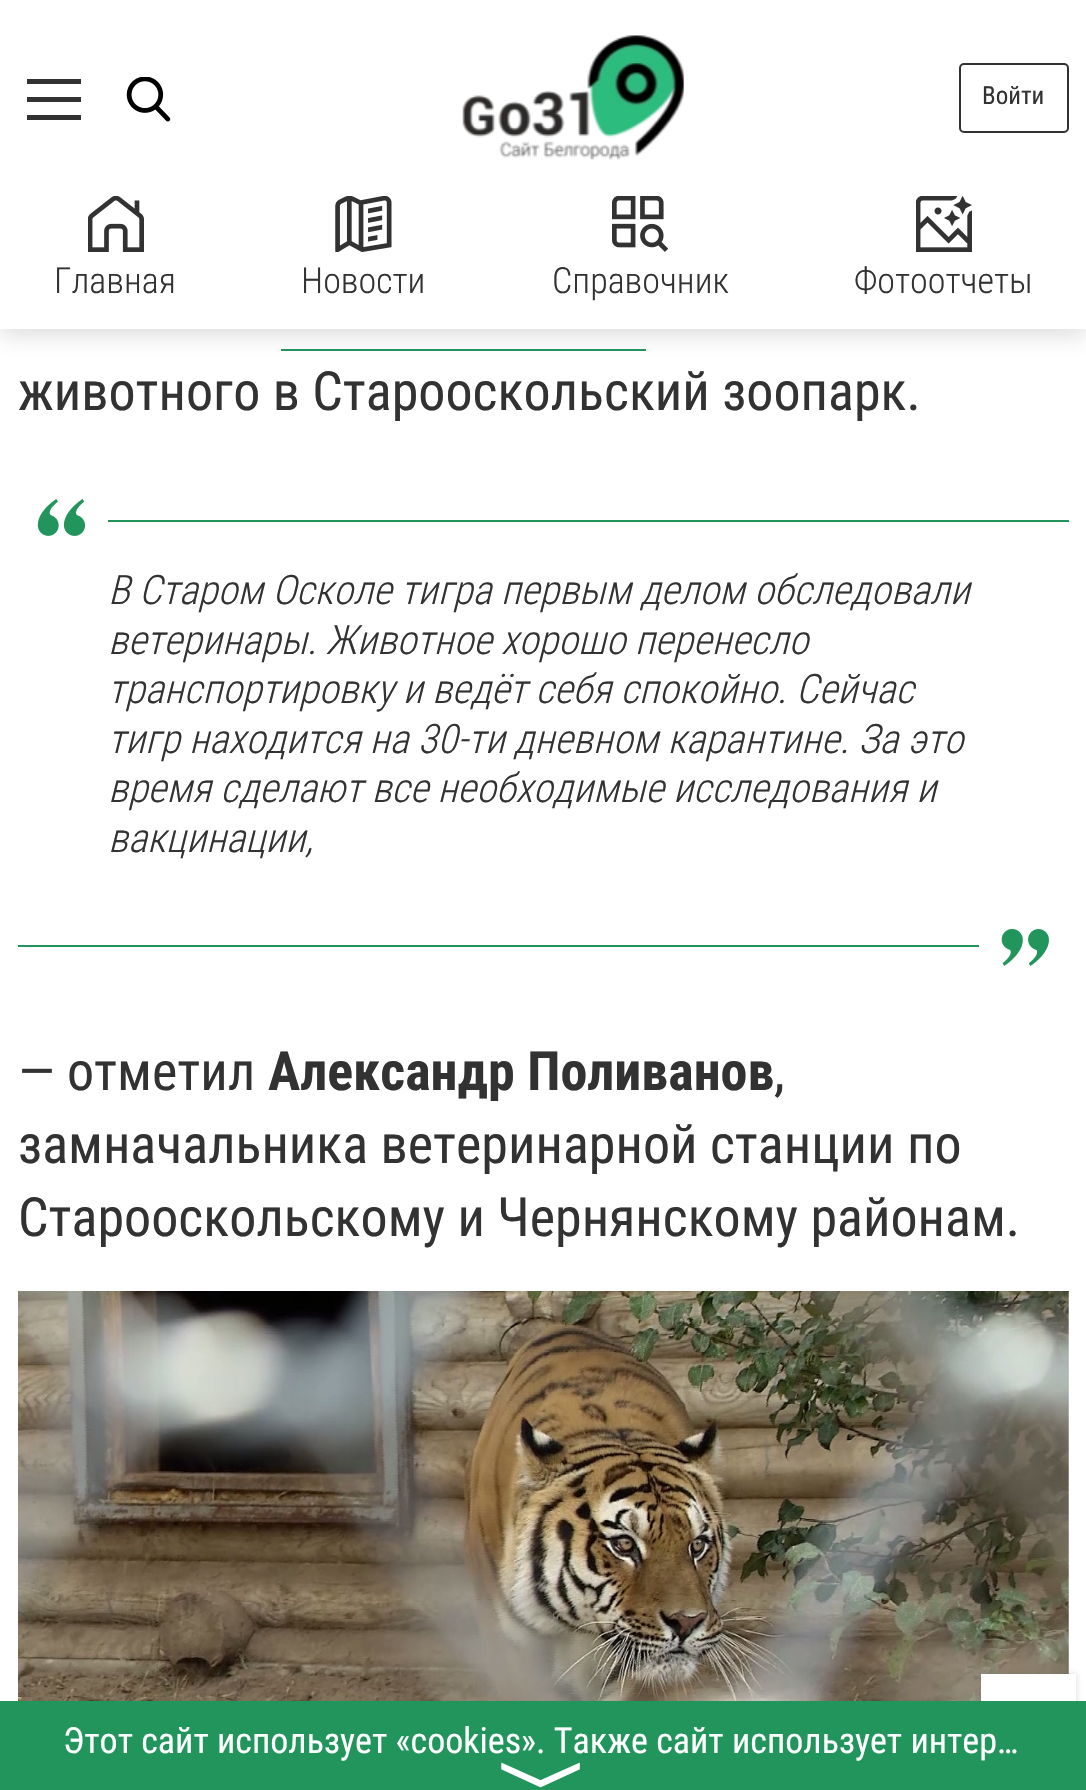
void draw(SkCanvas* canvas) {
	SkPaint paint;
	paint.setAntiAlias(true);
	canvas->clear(0xffffffff);
	paint.setColor(0xff22955d);
	canvas->drawRect(SkRect::MakeXYWH(281, 349, 365, 2), paint);
	paint.setColor(0x334e4e4e);
	paint.setMaskFilter(SkMaskFilter::MakeBlur(kNormal_SkBlurStyle, 11));
	canvas->drawRect(SkRect::MakeXYWH(0, 7, 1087, 328), paint);
	paint.setMaskFilter(nullptr);
	paint.setColor(0xffffffff);
	canvas->drawRect(SkRect::MakeXYWH(0, 0, 1086, 329), paint);
	paint.setColor(0xff323232);
	canvas->drawRect(SkRect::MakeXYWH(27, 97, 54, 5), paint);
	canvas->drawRect(SkRect::MakeXYWH(27, 79, 54, 5), paint);
	canvas->drawRect(SkRect::MakeXYWH(27, 115, 54, 5), paint);
	canvas->drawImageRect(SkImages::DeferredFromEncodedData(SkData::MakeFromFileName("img1.png")), SkRect::MakeXYWH(126, 77, 45, 45), SkSamplingOptions());
	canvas->drawImageRect(SkImages::DeferredFromEncodedData(SkData::MakeFromFileName("img2.png")), SkRect::MakeXYWH(462, 35, 222, 125), SkSamplingOptions());
	paint.setStroke(true);
	paint.setStrokeWidth(2);
	canvas->drawRoundRect(SkRect::MakeXYWH(960, 64, 108, 68), 4, 4, paint);
	SkFont f1(fontMgr->matchFamilyStyle("Roboto Condensed", SkFontStyle::Normal()), 25);
	f1.setSubpixel(true);
	paint.setStroke(false);
	canvas->drawString("Войти", 982, 104, f1, paint);
	canvas->drawImageRect(SkImages::DeferredFromEncodedData(SkData::MakeFromFileName("img3.png")), SkRect::MakeXYWH(88, 196, 56, 56), SkSamplingOptions());
	SkFont f2(fontMgr->matchFamilyStyle("Roboto Condensed", SkFontStyle(300, SkFontStyle::kNormal_Width, SkFontStyle::kUpright_Slant)), 36);
	f2.setSubpixel(true);
	canvas->drawString("Главная", 54, 293, f2, paint);
	canvas->drawImageRect(SkImages::DeferredFromEncodedData(SkData::MakeFromFileName("img4.png")), SkRect::MakeXYWH(335, 196, 57, 56), SkSamplingOptions());
	canvas->drawString("Новости", 301, 293, f2, paint);
	canvas->drawImageRect(SkImages::DeferredFromEncodedData(SkData::MakeFromFileName("img5.png")), SkRect::MakeXYWH(612, 196, 56, 56), SkSamplingOptions());
	canvas->drawString("Справочник", 552, 293, f2, paint);
	canvas->drawImageRect(SkImages::DeferredFromEncodedData(SkData::MakeFromFileName("img6.png")), SkRect::MakeXYWH(916, 196, 56, 56), SkSamplingOptions());
	canvas->drawString("Фотоотчеты", 854, 293, f2, paint);
	SkFont f3(fontMgr->matchFamilyStyle("Roboto Condensed", SkFontStyle::Normal()), 54);
	f3.setSubpixel(true);
	canvas->drawString("животного в Старооскольский зоопарк.", 18, 410, f3, paint);
	paint.setColor(0xff22955d);
	canvas->drawRect(SkRect::MakeXYWH(108, 520, 961, 2), paint);
	canvas->drawRect(SkRect::MakeXYWH(18, 945, 961, 2), paint);
	canvas->drawImageRect(SkImages::DeferredFromEncodedData(SkData::MakeFromFileName("img7.png")), SkRect::MakeXYWH(37, 499, 49, 37), SkSamplingOptions());
	SkFont f4(fontMgr->matchFamilyStyle("Roboto Condensed", SkFontStyle(300, SkFontStyle::kNormal_Width, SkFontStyle::kItalic_Slant)), 40.5);
	f4.setSubpixel(true);
	paint.setColor(0xff323232);
	canvas->drawString("В Старом Осколе тигра первым делом обследовали", 108, 604, f4, paint);
	canvas->drawString("ветеринары. Животное хорошо перенесло", 108, 654, f4, paint);
	canvas->drawString("транспортировку и ведёт себя спокойно. Сейчас", 108, 703, f4, paint);
	canvas->drawString("тигр находится на 30-ти дневном карантине. За это", 108, 753, f4, paint);
	canvas->drawString("время сделают все необходимые исследования и", 108, 802, f4, paint);
	canvas->drawString("вакцинации,", 108, 852, f4, paint);
	canvas->drawImageRect(SkImages::DeferredFromEncodedData(SkData::MakeFromFileName("img8.png")), SkRect::MakeXYWH(1001, 928, 48, 38), SkSamplingOptions());
	canvas->drawString("— отметил", 18, 1090, f3, paint);
	SkFont f5(fontMgr->matchFamilyStyle("Roboto Condensed", SkFontStyle::Bold()), 54);
	f5.setSubpixel(true);
	canvas->drawString("Александр Поливанов", 268, 1090, f5, paint);
	canvas->drawString(",", 774, 1090, f3, paint);
	canvas->drawString("замначальника ветеринарной станции по", 18, 1163, f3, paint);
	canvas->drawString("Старооскольскому и Чернянскому районам.", 18, 1236, f3, paint);
	canvas->drawImageRect(SkImages::DeferredFromEncodedData(SkData::MakeFromFileName("img9.png")), SkRect::MakeXYWH(18, 1291, 1051, 410), SkSamplingOptions());
	paint.setColor(0x40636363);
	paint.setMaskFilter(SkMaskFilter::MakeBlur(kNormal_SkBlurStyle, 3.5));
	canvas->drawRect(SkRect::MakeXYWH(981, 1674, 95, 95), paint);
	paint.setMaskFilter(nullptr);
	paint.setColor(0xff22955d);
	canvas->drawRect(SkRect::MakeXYWH(0, 1701, 1086, 89), paint);
	SkFont f6(fontMgr->matchFamilyStyle("Roboto Condensed", SkFontStyle::Normal()), 36);
	f6.setSubpixel(true);
	paint.setColor(0xffffffff);
	canvas->drawString("Этот сайт использует «cookies». Также сайт использует интер…", 63, 1753, f6, paint);
	SkFont f7(fontMgr->matchFamilyStyle("FreeSans", SkFontStyle::Normal()), 90);
	f7.setSubpixel(true);
	canvas->save();
	canvas->rotate(90, 514, 1760);
	canvas->drawString("〉", 514, 1760, f7, paint);
	canvas->restore();
	canvas->drawRect(SkRect::MakeXYWH(981, 1674, 95, 27), paint);
}
